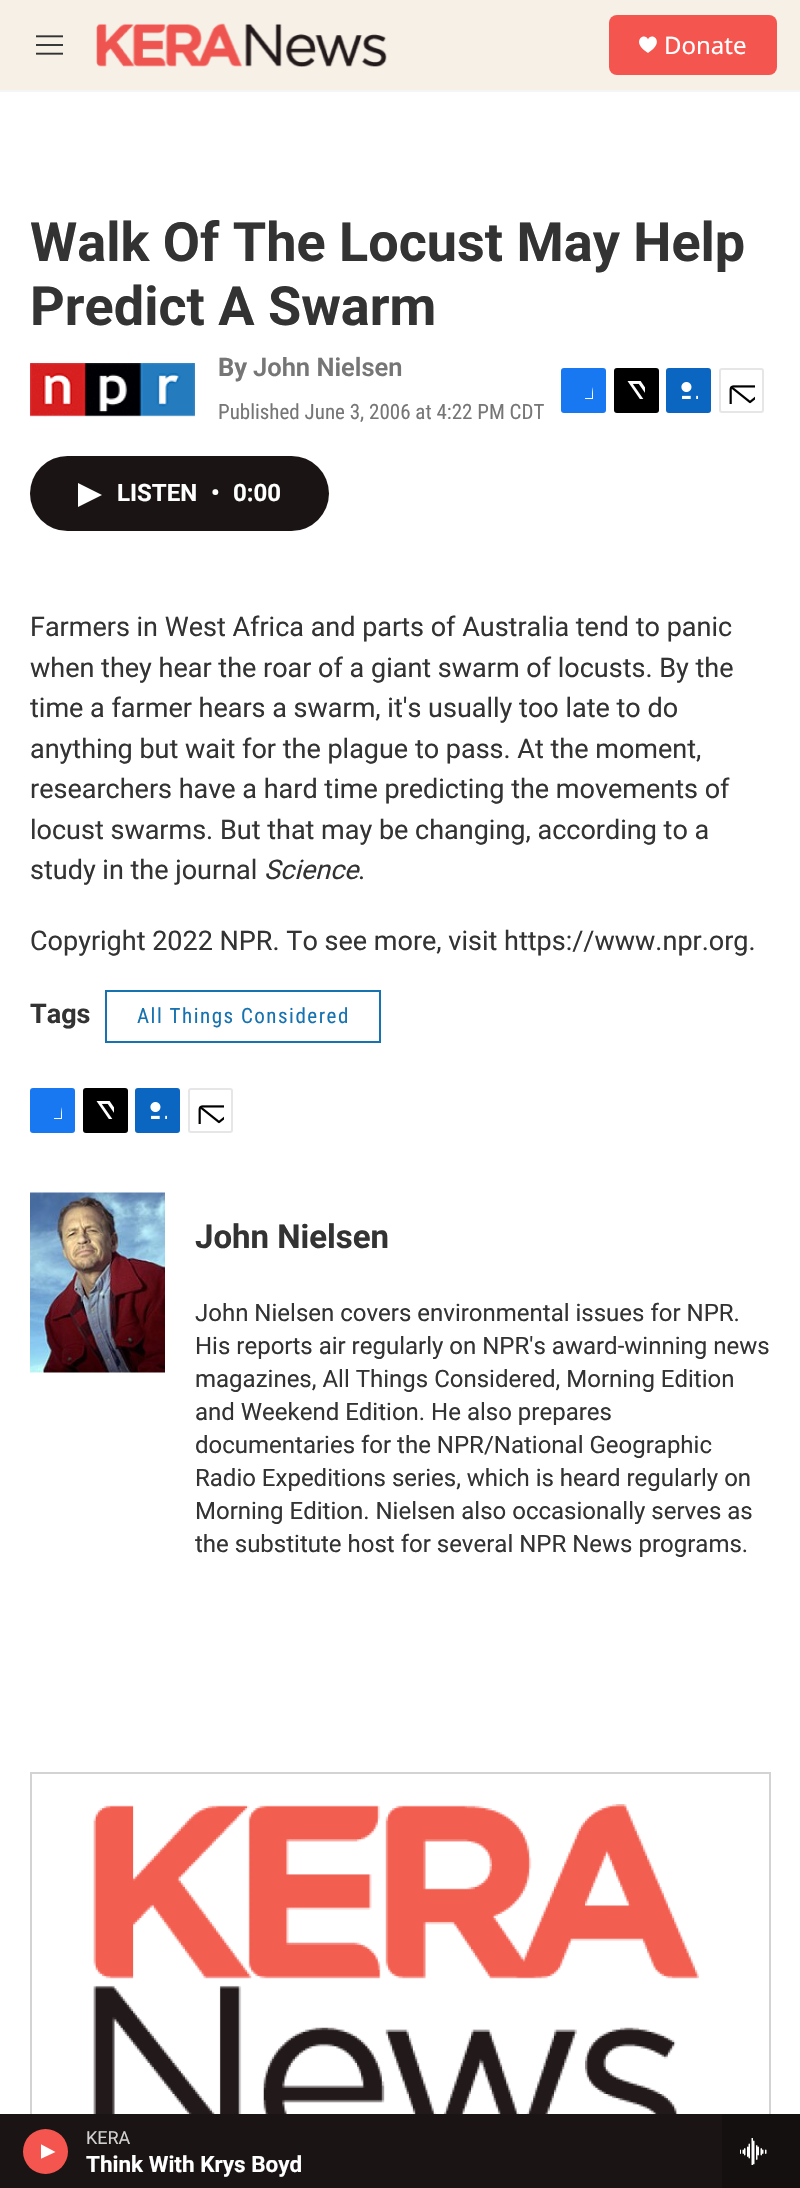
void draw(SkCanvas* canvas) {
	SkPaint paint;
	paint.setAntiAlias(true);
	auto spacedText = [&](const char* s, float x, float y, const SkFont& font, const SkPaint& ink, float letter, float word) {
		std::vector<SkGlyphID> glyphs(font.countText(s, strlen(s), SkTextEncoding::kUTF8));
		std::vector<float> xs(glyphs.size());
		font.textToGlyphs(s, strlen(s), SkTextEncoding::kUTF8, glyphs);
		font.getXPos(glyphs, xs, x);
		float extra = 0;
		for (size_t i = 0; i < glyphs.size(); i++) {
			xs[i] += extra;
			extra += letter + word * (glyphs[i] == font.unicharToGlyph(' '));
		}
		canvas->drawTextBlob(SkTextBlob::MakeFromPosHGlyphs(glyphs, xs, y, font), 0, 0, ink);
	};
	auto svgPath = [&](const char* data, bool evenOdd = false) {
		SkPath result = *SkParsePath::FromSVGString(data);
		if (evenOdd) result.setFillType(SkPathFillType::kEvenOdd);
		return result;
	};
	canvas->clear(0xffffffff);
	paint.setColor(0xfff7f0e7);
	canvas->drawRect(SkRect::MakeXYWH(0, 0, 800, 90), paint);
	paint.setColor(0xfff5f5f5);
	canvas->drawRect(SkRect::MakeXYWH(0, 90, 800, 2), paint);
	canvas->drawImageRect(SkImages::DeferredFromEncodedData(SkData::MakeFromFileName("img1.png")), SkRect::MakeXYWH(36, 35, 27, 20), SkSamplingOptions());
	canvas->drawImageRect(SkImages::DeferredFromEncodedData(SkData::MakeFromFileName("img2.png")), SkRect::MakeXYWH(96, 23, 291, 44), SkSamplingOptions());
	paint.setColor(0xfff5554f);
	canvas->drawRoundRect(SkRect::MakeXYWH(609, 15, 168, 60), 8, 8, paint);
	paint.setColor(0xffffffff);
	canvas->drawPath(svgPath("M648 39.5C645 31.5 629.5 41.5 648 53C666.5 41.5 651 31.5 648 39.5Z"), paint);
	SkFont f1(fontMgr->matchFamilyStyle("Noto Sans", SkFontStyle::Normal()), 24);
	f1.setSubpixel(true);
	canvas->drawString("Donate", 664, 54, f1, paint);
	paint.setStroke(true);
	paint.setStrokeWidth(2);
	paint.setColor(0xffd3d3d3);
	canvas->drawRect(SkRect::MakeXYWH(31, 1773, 739, 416), paint);
	paint.setStroke(false);
	paint.setColor(0xff1a1414);
	canvas->drawRect(SkRect::MakeXYWH(0, 2114, 722, 74), paint);
	paint.setColor(0xfff5554f);
	canvas->drawCircle(45.5, 2151.5, 22.5, paint);
	canvas->save();
	canvas->clipRect(SkRect::MakeXYWH(41, 2144, 15, 16));
	paint.setColor(0xffffffff);
	canvas->drawPath(svgPath("M40.5 2144L55.5 2152L40.5 2159Z"), paint);
	canvas->restore();
	SkFont f2(fontMgr->matchFamilyStyle("Roboto", SkFontStyle::Normal()), 18);
	f2.setSubpixel(true);
	paint.setColor(0xffd1d0d0);
	canvas->drawString("KERA", 86, 2144, f2, paint);
	SkFont f3(fontMgr->matchFamilyStyle("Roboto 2", SkFontStyle::Bold()), 22.5);
	f3.setSubpixel(true);
	paint.setColor(0xffffffff);
	canvas->drawString("Think With Krys Boyd", 86, 2172, f3, paint);
	paint.setColor(0xff151010);
	canvas->drawRect(SkRect::MakeXYWH(722, 2114, 78, 74), paint);
	canvas->drawImageRect(SkImages::DeferredFromEncodedData(SkData::MakeFromFileName("img3.png")), SkRect::MakeXYWH(740, 2138, 27, 27), SkSamplingOptions());
	SkFont f4(fontMgr->matchFamilyStyle("Roboto", SkFontStyle::Bold()), 54);
	f4.setSubpixel(true);
	paint.setColor(0xff333333);
	canvas->drawString("Walk Of The Locust May Help", 30, 261, f4, paint);
	canvas->drawString("Predict A Swarm", 30, 325, f4, paint);
	canvas->drawImageRect(SkImages::DeferredFromEncodedData(SkData::MakeFromFileName("img4.png")), SkRect::MakeXYWH(30, 363, 165, 54), SkSamplingOptions());
	SkFont f5(fontMgr->matchFamilyStyle("Roboto", SkFontStyle::Bold()), 25.5);
	f5.setSubpixel(true);
	paint.setColor(0xff767676);
	canvas->drawString("By", 218, 376, f5, paint);
	SkFont f6(fontMgr->matchFamilyStyle("Roboto", SkFontStyle(600, SkFontStyle::kNormal_Width, SkFontStyle::kUpright_Slant)), 25.5);
	f6.setSubpixel(true);
	canvas->drawString("John Nielsen", 253, 376, f6, paint);
	SkFont f7(fontMgr->matchFamilyStyle("Roboto Condensed", SkFontStyle::Normal()), 21);
	f7.setSubpixel(true);
	canvas->drawString("Published June 3, 2006 at 4:22 PM CDT", 218, 419, f7, paint);
	paint.setColor(0xff1778f2);
	canvas->drawRoundRect(SkRect::MakeXYWH(561, 368, 45, 45), 3, 3, paint);
	canvas->save();
	canvas->clipRect(SkRect::MakeXYWH(575, 381, 18, 18));
	paint.setColor(0xffffffff);
	canvas->drawPath(svgPath("M599 413H592V405H585V398H592C592 385.5 593 380 606 382V389C597.5 389 599 390.5 599 398H606L605 405H599Z"), paint);
	canvas->restore();
	paint.setColor(0xff000000);
	canvas->drawRoundRect(SkRect::MakeXYWH(614, 368, 45, 45), 3, 3, paint);
	canvas->drawImageRect(SkImages::DeferredFromEncodedData(SkData::MakeFromFileName("img5.png")), SkRect::MakeXYWH(627, 381, 18, 18), SkSamplingOptions());
	paint.setColor(0xff0a66c1);
	canvas->drawRoundRect(SkRect::MakeXYWH(666, 368, 45, 45), 3, 3, paint);
	canvas->drawImageRect(SkImages::DeferredFromEncodedData(SkData::MakeFromFileName("img6.png")), SkRect::MakeXYWH(681, 382, 17, 17), SkSamplingOptions());
	paint.setStroke(true);
	paint.setColor(0xffe6e6e6);
	canvas->drawRoundRect(SkRect::MakeXYWH(720, 369, 43, 43), 2, 2, paint);
	canvas->drawImageRect(SkImages::DeferredFromEncodedData(SkData::MakeFromFileName("img7.png")), SkRect::MakeXYWH(729, 385, 26, 19), SkSamplingOptions());
	paint.setStroke(false);
	paint.setColor(0xff1a1414);
	canvas->drawRoundRect(SkRect::MakeXYWH(30, 456, 299, 75), 37.5, 37.5, paint);
	paint.setColor(0xffffffff);
	canvas->drawPath(svgPath("M78 483L102 495L78 507Z"), paint);
	SkFont f8(fontMgr->matchFamilyStyle("Roboto 2", SkFontStyle::Bold()), 24);
	f8.setSubpixel(true);
	canvas->drawString("LISTEN", 117, 501, f8, paint);
	canvas->drawString("•", 211, 501, f8, paint);
	canvas->drawString("0:00", 233, 501, f8, paint);
	SkFont f9(fontMgr->matchFamilyStyle("Roboto", SkFontStyle::Normal()), 27);
	f9.setSubpixel(true);
	paint.setColor(0xff333333);
	canvas->drawString("Farmers in West Africa and parts of Australia tend to panic", 30, 636, f9, paint);
	canvas->drawString("when they hear the roar of a giant swarm of locusts. By the", 30, 677, f9, paint);
	canvas->drawString("time a farmer hears a swarm, it's usually too late to do", 30, 717, f9, paint);
	canvas->drawString("anything but wait for the plague to pass. At the moment,", 30, 758, f9, paint);
	canvas->drawString("researchers have a hard time predicting the movements of", 30, 798, f9, paint);
	canvas->drawString("locust swarms. But that may be changing, according to a", 30, 839, f9, paint);
	canvas->drawString("study in the journal", 30, 879, f9, paint);
	SkFont f10(fontMgr->matchFamilyStyle("Roboto", SkFontStyle::Italic()), 27);
	f10.setSubpixel(true);
	canvas->drawString("Science", 264, 879, f10, paint);
	canvas->drawString(".", 358, 879, f9, paint);
	canvas->drawString("Copyright 2022 NPR. To see more, visit https://www.npr.org.", 30, 950, f9, paint);
	SkFont f11(fontMgr->matchFamilyStyle("Roboto", SkFontStyle::Bold()), 27);
	f11.setSubpixel(true);
	canvas->drawString("Tags", 30, 1023, f11, paint);
	paint.setStroke(true);
	paint.setColor(0xff1772b0);
	canvas->drawRect(SkRect::MakeXYWH(106, 991, 274, 51), paint);
	paint.setStroke(false);
	spacedText("All Things Considered", 137, 1023, f7, paint, 1.5, 0);
	paint.setColor(0xff1778f2);
	canvas->drawRoundRect(SkRect::MakeXYWH(30, 1088, 45, 45), 3, 3, paint);
	canvas->save();
	canvas->clipRect(SkRect::MakeXYWH(44, 1101, 18, 18));
	paint.setColor(0xffffffff);
	canvas->drawPath(svgPath("M68 1133H61V1125H54V1118H61C61 1105.5 62 1100 75 1102V1109C66.5 1109 68 1110.5 68 1118H75L74 1125H68Z"), paint);
	canvas->restore();
	paint.setColor(0xff000000);
	canvas->drawRoundRect(SkRect::MakeXYWH(83, 1088, 45, 45), 3, 3, paint);
	canvas->drawImageRect(SkImages::DeferredFromEncodedData(SkData::MakeFromFileName("img5.png")), SkRect::MakeXYWH(96, 1101, 18, 18), SkSamplingOptions());
	paint.setColor(0xff0a66c1);
	canvas->drawRoundRect(SkRect::MakeXYWH(135, 1088, 45, 45), 3, 3, paint);
	canvas->drawImageRect(SkImages::DeferredFromEncodedData(SkData::MakeFromFileName("img6.png")), SkRect::MakeXYWH(150, 1102, 17, 17), SkSamplingOptions());
	paint.setStroke(true);
	paint.setColor(0xffe6e6e6);
	canvas->drawRoundRect(SkRect::MakeXYWH(189, 1089, 43, 43), 2, 2, paint);
	canvas->drawImageRect(SkImages::DeferredFromEncodedData(SkData::MakeFromFileName("img7.png")), SkRect::MakeXYWH(198, 1105, 26, 19), SkSamplingOptions());
	canvas->drawImageRect(SkImages::DeferredFromEncodedData(SkData::MakeFromFileName("img8.png")), SkRect::MakeXYWH(30, 1192, 135, 181), SkSamplingOptions());
	SkFont f12(fontMgr->matchFamilyStyle("Roboto", SkFontStyle::Bold()), 33);
	f12.setSubpixel(true);
	paint.setStroke(false);
	paint.setColor(0xff333333);
	canvas->drawString("John Nielsen", 195, 1248, f12, paint);
	SkFont f13(fontMgr->matchFamilyStyle("Roboto", SkFontStyle::Normal()), 24);
	f13.setSubpixel(true);
	canvas->drawString("John Nielsen covers environmental issues for NPR.", 195, 1321, f13, paint);
	canvas->drawString("His reports air regularly on NPR's award-winning news", 195, 1354, f13, paint);
	canvas->drawString("magazines, All Things Considered, Morning Edition", 195, 1387, f13, paint);
	canvas->drawString("and Weekend Edition. He also prepares", 195, 1420, f13, paint);
	canvas->drawString("documentaries for the NPR/National Geographic", 195, 1453, f13, paint);
	canvas->drawString("Radio Expeditions series, which is heard regularly on", 195, 1486, f13, paint);
	canvas->drawString("Morning Edition. Nielsen also occasionally serves as", 195, 1519, f13, paint);
	canvas->drawString("the substitute host for several NPR News programs.", 195, 1552, f13, paint);
	canvas->drawImageRect(SkImages::DeferredFromEncodedData(SkData::MakeFromFileName("img9.png")), SkRect::MakeXYWH(93, 1804, 606, 310), SkSamplingOptions());
}
